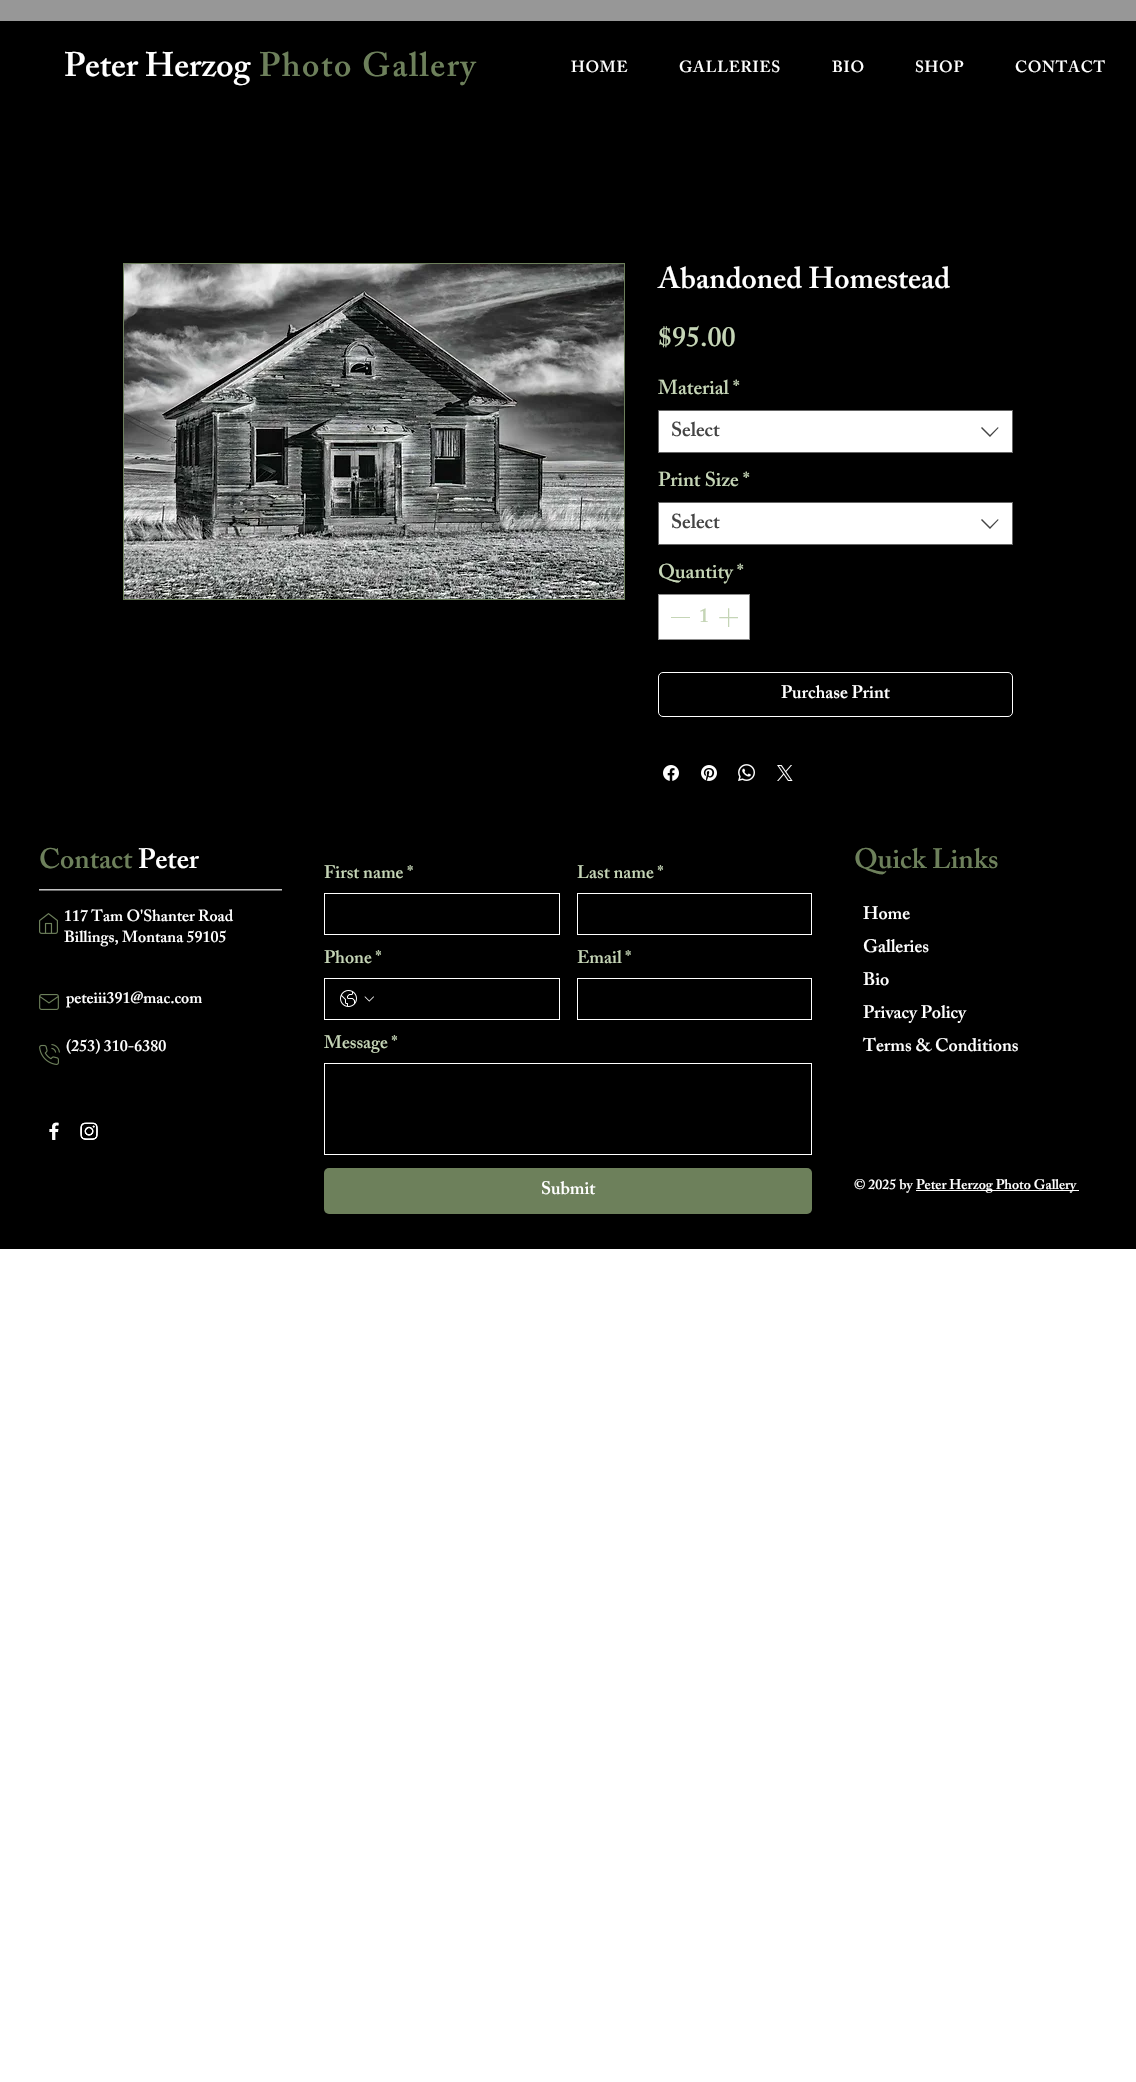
void draw(SkCanvas* canvas) {
	SkPaint paint;
	paint.setAntiAlias(true);
	auto spacedText = [&](const char* s, float x, float y, const SkFont& font, const SkPaint& ink, float letter, float word) {
		std::vector<SkGlyphID> glyphs(font.countText(s, strlen(s), SkTextEncoding::kUTF8));
		std::vector<float> xs(glyphs.size());
		font.textToGlyphs(s, strlen(s), SkTextEncoding::kUTF8, glyphs);
		font.getXPos(glyphs, xs, x);
		float extra = 0;
		for (size_t i = 0; i < glyphs.size(); i++) {
			xs[i] += extra;
			extra += letter + word * (glyphs[i] == font.unicharToGlyph(' '));
		}
		canvas->drawTextBlob(SkTextBlob::MakeFromPosHGlyphs(glyphs, xs, y, font), 0, 0, ink);
	};
	auto svgPath = [&](const char* data, bool evenOdd = false) {
		SkPath result = *SkParsePath::FromSVGString(data);
		if (evenOdd) result.setFillType(SkPathFillType::kEvenOdd);
		return result;
	};
	canvas->clear(0xffffffff);
	paint.setColor(0xff979797);
	canvas->drawRect(SkRect::MakeXYWH(0, 0, 1136, 21), paint);
	paint.setColor(0xff000000);
	canvas->drawRect(SkRect::MakeXYWH(0, 21, 1136, 821), paint);
	SkFont f1(fontMgr->matchFamilyStyle("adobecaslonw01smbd", SkFontStyle(600, SkFontStyle::kNormal_Width, SkFontStyle::kUpright_Slant)), 34);
	f1.setSubpixel(true);
	paint.setColor(0xffffffff);
	canvas->drawString("Peter Herzog", 64, 76, f1, paint);
	paint.setColor(0xff6d805b);
	spacedText("Photo Gallery", 259, 76, f1, paint, 1.75, 0);
	SkFont f2(fontMgr->matchFamilyStyle("adobecaslonw01smbd", SkFontStyle(600, SkFontStyle::kNormal_Width, SkFontStyle::kUpright_Slant)), 16);
	f2.setSubpixel(true);
	paint.setColor(0xffffffff);
	spacedText("HOME", 571, 72, f2, paint, 0.75, 0);
	spacedText("GALLERIES", 679, 72, f2, paint, 0.75, 0);
	spacedText("BIO", 832, 72, f2, paint, 0.75, 0);
	spacedText("SHOP", 915, 72, f2, paint, 0.75, 0);
	spacedText("CONTACT", 1015, 72, f2, paint, 0.75, 0);
	paint.setStroke(true);
	paint.setStrokeWidth(1);
	paint.setColor(0xff6d805b);
	canvas->drawRect(SkRect::MakeXYWH(123.5, 263.5, 501, 336), paint);
	canvas->drawImageRect(SkImages::DeferredFromEncodedData(SkData::MakeFromFileName("img1.png")), SkRect::MakeXYWH(124, 264, 500, 335), SkSamplingOptions());
	SkFont f3(fontMgr->matchFamilyStyle("adobecaslonw01smbd", SkFontStyle(600, SkFontStyle::kNormal_Width, SkFontStyle::kUpright_Slant)), 30);
	f3.setSubpixel(true);
	paint.setStroke(false);
	paint.setColor(0xffffffff);
	canvas->drawString("Abandoned Homestead", 658, 288, f3, paint);
	SkFont f4(fontMgr->matchFamilyStyle("adobecaslonw01smbd", SkFontStyle(600, SkFontStyle::kNormal_Width, SkFontStyle::kUpright_Slant)), 28);
	f4.setSubpixel(true);
	paint.setColor(0xffc5d5b6);
	canvas->drawString("$95.00", 658, 346, f4, paint);
	SkFont f5(fontMgr->matchFamilyStyle("adobecaslonw01smbd", SkFontStyle(600, SkFontStyle::kNormal_Width, SkFontStyle::kUpright_Slant)), 20);
	f5.setSubpixel(true);
	canvas->drawString("Material *", 658, 394, f5, paint);
	paint.setColor(0xffffffff);
	canvas->drawRect(SkRect::MakeXYWH(658.5, 410.5, 354, 42), paint);
	paint.setStroke(true);
	paint.setColor(0xff666666);
	canvas->drawRect(SkRect::MakeXYWH(658.5, 410.5, 354, 42), paint);
	paint.setStroke(false);
	paint.setColor(0xff444444);
	canvas->drawString("Select", 671, 436, f5, paint);
	canvas->drawPath(svgPath("M998 427L998.5 428L990 437L981 428L982 427L990 435Z", true), paint);
	paint.setColor(0xffc5d5b6);
	canvas->drawString("Print Size *", 658, 486, f5, paint);
	paint.setColor(0xffffffff);
	canvas->drawRect(SkRect::MakeXYWH(658.5, 502.5, 354, 42), paint);
	paint.setStroke(true);
	paint.setColor(0xff666666);
	canvas->drawRect(SkRect::MakeXYWH(658.5, 502.5, 354, 42), paint);
	paint.setStroke(false);
	paint.setColor(0xff444444);
	canvas->drawString("Select", 671, 528, f5, paint);
	canvas->drawPath(svgPath("M998 519L998.5 520L990 529L981 520L982 519L990 527Z", true), paint);
	paint.setColor(0xffc5d5b6);
	canvas->drawString("Quantity *", 658, 578, f5, paint);
	paint.setColor(0xffffffff);
	canvas->drawRect(SkRect::MakeXYWH(658.5, 594.5, 91, 45), paint);
	paint.setStroke(true);
	paint.setColor(0xff8d8d8d);
	canvas->drawRect(SkRect::MakeXYWH(658.5, 594.5, 91, 45), paint);
	paint.setStroke(false);
	paint.setColor(0xffc5d5b6);
	canvas->drawRect(SkRect::MakeXYWH(671, 617, 19, 1), paint);
	canvas->drawString("1", 699, 622, f5, paint);
	canvas->drawImageRect(SkImages::DeferredFromEncodedData(SkData::MakeFromFileName("img2.png")), SkRect::MakeXYWH(719, 608, 19, 19), SkSamplingOptions());
	paint.setStroke(true);
	paint.setColor(0xffffffff);
	canvas->drawRoundRect(SkRect::MakeXYWH(658.5, 672.5, 354, 44), 4.5, 4.5, paint);
	SkFont f6(fontMgr->matchFamilyStyle("adobecaslonw01smbd", SkFontStyle(600, SkFontStyle::kNormal_Width, SkFontStyle::kUpright_Slant)), 18);
	f6.setSubpixel(true);
	paint.setStroke(false);
	canvas->drawString("Purchase Print", 781, 698, f6, paint);
	canvas->drawImageRect(SkImages::DeferredFromEncodedData(SkData::MakeFromFileName("img3.png")), SkRect::MakeXYWH(663, 765, 16, 16), SkSamplingOptions());
	canvas->drawImageRect(SkImages::DeferredFromEncodedData(SkData::MakeFromFileName("img4.png")), SkRect::MakeXYWH(701, 765, 16, 16), SkSamplingOptions());
	canvas->drawImageRect(SkImages::DeferredFromEncodedData(SkData::MakeFromFileName("img5.png")), SkRect::MakeXYWH(738, 764, 17, 17), SkSamplingOptions());
	canvas->drawImageRect(SkImages::DeferredFromEncodedData(SkData::MakeFromFileName("img6.png")), SkRect::MakeXYWH(777, 765, 16, 16), SkSamplingOptions());
	paint.setColor(0xff000000);
	canvas->drawRect(SkRect::MakeXYWH(0, 842, 1136, 407), paint);
	paint.setColor(0xff6d805b);
	canvas->drawString("Contact", 39, 868, f4, paint);
	paint.setColor(0xffffffff);
	canvas->drawString("Peter", 138, 868, f4, paint);
	canvas->drawString("___________________________", 39, 888, f6, paint);
	canvas->drawImageRect(SkImages::DeferredFromEncodedData(SkData::MakeFromFileName("img7.png")), SkRect::MakeXYWH(39, 913, 19, 21), SkSamplingOptions());
	canvas->drawString("117 Tam O'Shanter Road", 64, 921, f2, paint);
	canvas->drawString("Billings, Montana 59105", 64, 942, f2, paint);
	canvas->drawImageRect(SkImages::DeferredFromEncodedData(SkData::MakeFromFileName("img8.png")), SkRect::MakeXYWH(39, 994, 20, 16), SkSamplingOptions());
	canvas->drawString("peteiii391@mac.com", 66, 1003, f2, paint);
	canvas->drawString("(253) 310-6380", 66, 1051, f2, paint);
	canvas->drawImageRect(SkImages::DeferredFromEncodedData(SkData::MakeFromFileName("img9.png")), SkRect::MakeXYWH(39, 1044, 21, 21), SkSamplingOptions());
	canvas->drawImageRect(SkImages::DeferredFromEncodedData(SkData::MakeFromFileName("img10.png")), SkRect::MakeXYWH(49, 1122, 10, 18), SkSamplingOptions());
	canvas->drawImageRect(SkImages::DeferredFromEncodedData(SkData::MakeFromFileName("img11.png")), SkRect::MakeXYWH(80, 1122, 18, 18), SkSamplingOptions());
	paint.setColor(0xffc5d5b6);
	canvas->drawString("First name *", 324, 878, f6, paint);
	canvas->drawString("Last name *", 577, 878, f6, paint);
	paint.setStroke(true);
	paint.setColor(0xffffffff);
	canvas->drawRect(SkRect::MakeXYWH(324.5, 893.5, 235, 41), paint);
	canvas->drawRect(SkRect::MakeXYWH(577.5, 893.5, 234, 41), paint);
	paint.setStroke(false);
	paint.setColor(0xffc5d5b6);
	canvas->drawString("Phone *", 324, 963, f6, paint);
	canvas->drawString("Email *", 577, 963, f6, paint);
	paint.setStroke(true);
	paint.setColor(0xffffffff);
	canvas->drawRect(SkRect::MakeXYWH(324.5, 978.5, 235, 41), paint);
	canvas->drawImageRect(SkImages::DeferredFromEncodedData(SkData::MakeFromFileName("img12.png")), SkRect::MakeXYWH(340, 990, 17, 17), SkSamplingOptions());
	canvas->drawImageRect(SkImages::DeferredFromEncodedData(SkData::MakeFromFileName("img13.png")), SkRect::MakeXYWH(364, 996, 10, 6), SkSamplingOptions());
	canvas->drawRect(SkRect::MakeXYWH(577.5, 978.5, 234, 41), paint);
	paint.setStroke(false);
	paint.setColor(0xffc5d5b6);
	canvas->drawString("Message *", 324, 1048, f6, paint);
	paint.setStroke(true);
	paint.setColor(0xffffffff);
	canvas->drawRect(SkRect::MakeXYWH(324.5, 1063.5, 487, 91), paint);
	paint.setStroke(false);
	paint.setColor(0xff6d805b);
	canvas->drawRoundRect(SkRect::MakeXYWH(324, 1168, 488, 46), 5, 5, paint);
	paint.setColor(0xffffffff);
	canvas->drawString("Submit", 541, 1194, f6, paint);
	paint.setColor(0xff6d805b);
	canvas->drawString("Quick Links", 854, 868, f4, paint);
	paint.setColor(0xffffffff);
	canvas->drawString("Home", 863, 919, f6, paint);
	canvas->drawString("Galleries", 863, 952, f6, paint);
	canvas->drawString("Bio", 863, 985, f6, paint);
	canvas->drawString("Privacy Policy", 863, 1018, f6, paint);
	canvas->drawString("Terms & Conditions", 863, 1051, f6, paint);
	SkFont f7(fontMgr->matchFamilyStyle("adobecaslonw01smbd", SkFontStyle(600, SkFontStyle::kNormal_Width, SkFontStyle::kUpright_Slant)), 14);
	f7.setSubpixel(true);
	canvas->drawString("© 2025 by", 854, 1189, f7, paint);
	canvas->drawRect(SkRect::MakeXYWH(916, 1190, 163, 1), paint);
	canvas->drawString("Peter Herzog Photo Gallery", 916, 1189, f7, paint);
}
